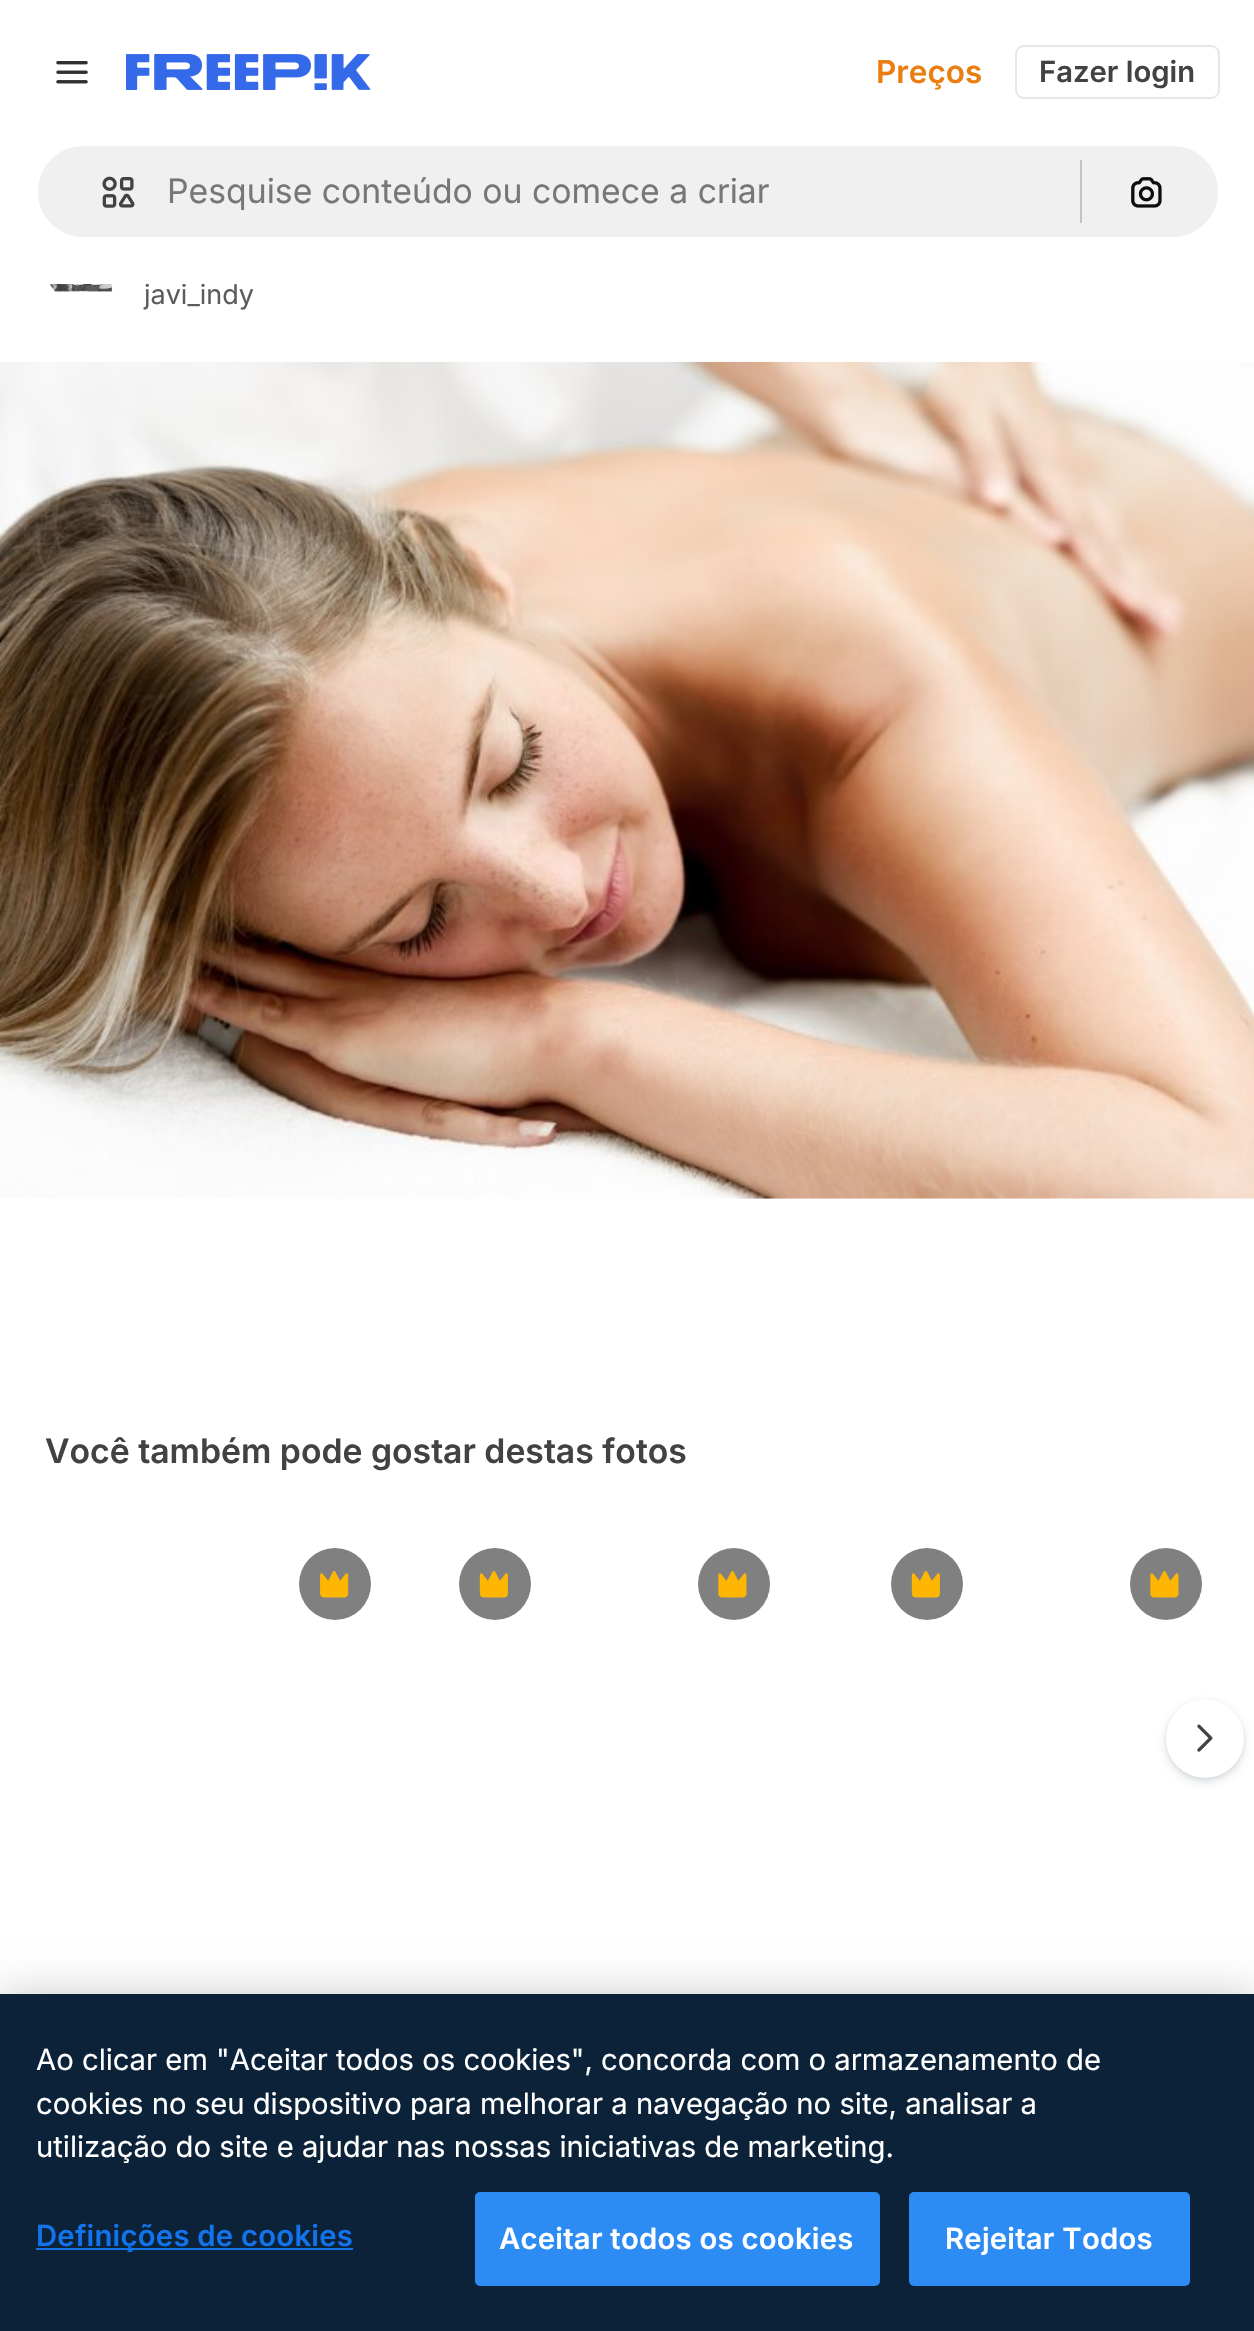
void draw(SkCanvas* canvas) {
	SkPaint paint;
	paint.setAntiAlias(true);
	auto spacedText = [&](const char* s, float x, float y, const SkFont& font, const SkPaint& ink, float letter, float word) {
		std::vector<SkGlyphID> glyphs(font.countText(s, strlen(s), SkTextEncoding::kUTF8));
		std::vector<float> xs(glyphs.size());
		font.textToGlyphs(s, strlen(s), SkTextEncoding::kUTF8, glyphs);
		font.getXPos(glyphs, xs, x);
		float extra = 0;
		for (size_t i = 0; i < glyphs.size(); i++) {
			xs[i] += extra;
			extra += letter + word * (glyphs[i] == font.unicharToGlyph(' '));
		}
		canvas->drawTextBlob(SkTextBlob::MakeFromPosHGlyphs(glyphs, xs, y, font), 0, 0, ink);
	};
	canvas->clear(0xffffffff);
	SkFont f1(fontMgr->matchFamilyStyle("Inter", SkFontStyle::Normal()), 27);
	f1.setSubpixel(true);
	paint.setColor(0xff5c5c5c);
	canvas->drawString("javi_indy", 144, 304, f1, paint);
	paint.setColor(0xffffffff);
	canvas->drawRect(SkRect::MakeXYWH(146, 283, 58, 1), paint);
	canvas->drawImageRect(SkImages::DeferredFromEncodedData(SkData::MakeFromFileName("img1.png")), SkRect::MakeXYWH(56, 61, 32, 23), SkSamplingOptions());
	canvas->drawImageRect(SkImages::DeferredFromEncodedData(SkData::MakeFromFileName("img2.png")), SkRect::MakeXYWH(126, 54, 245, 36), SkSamplingOptions());
	SkFont f2(fontMgr->matchFamilyStyle("Inter", SkFontStyle(600, SkFontStyle::kNormal_Width, SkFontStyle::kUpright_Slant)), 31.5);
	f2.setSubpixel(true);
	paint.setColor(0xffea7e11);
	canvas->drawString("Preços", 876, 83, f2, paint);
	paint.setStroke(true);
	paint.setStrokeWidth(2);
	paint.setColor(0xffe7e7e7);
	canvas->drawRoundRect(SkRect::MakeXYWH(1016, 46, 203, 52), 8, 8, paint);
	SkFont f3(fontMgr->matchFamilyStyle("Inter", SkFontStyle(600, SkFontStyle::kNormal_Width, SkFontStyle::kUpright_Slant)), 29.25);
	f3.setSubpixel(true);
	paint.setStroke(false);
	paint.setColor(0xff424242);
	canvas->drawString("Fazer login", 1039, 82, f3, paint);
	paint.setColor(0xfff0f0f0);
	canvas->drawRoundRect(SkRect::MakeXYWH(37, 145, 1182, 93), 46.5, 46.5, paint);
	paint.setStroke(true);
	paint.setColor(0xffffffff);
	canvas->drawRoundRect(SkRect::MakeXYWH(37, 145, 1182, 93), 46.5, 46.5, paint);
	canvas->drawImageRect(SkImages::DeferredFromEncodedData(SkData::MakeFromFileName("img3.png")), SkRect::MakeXYWH(102, 176, 33, 32), SkSamplingOptions());
	SkFont f4(fontMgr->matchFamilyStyle("Inter", SkFontStyle::Normal()), 33.75);
	f4.setSubpixel(true);
	paint.setStroke(false);
	paint.setColor(0xff777777);
	canvas->drawString("Pesquise conteúdo ou comece a criar", 167, 203, f4, paint);
	paint.setColor(0xffc3c3c3);
	canvas->drawRect(SkRect::MakeXYWH(1080, 160, 2, 63), paint);
	canvas->drawImageRect(SkImages::DeferredFromEncodedData(SkData::MakeFromFileName("img4.png")), SkRect::MakeXYWH(1131, 177, 31, 31), SkSamplingOptions());
	canvas->drawImageRect(SkImages::DeferredFromEncodedData(SkData::MakeFromFileName("img5.png")), SkRect::MakeXYWH(50, 284, 65, 8), SkSamplingOptions());
	canvas->drawImageRect(SkImages::DeferredFromEncodedData(SkData::MakeFromFileName("img6.png")), SkRect::MakeXYWH(0, 361, 1254, 838), SkSamplingOptions());
	SkFont f5(fontMgr->matchFamilyStyle("Inter", SkFontStyle(600, SkFontStyle::kNormal_Width, SkFontStyle::kUpright_Slant)), 33.75);
	f5.setSubpixel(true);
	paint.setColor(0xff424242);
	canvas->drawString("Você também pode gostar destas fotos", 45, 1463, f5, paint);
	paint.setColor(0xff808080);
	canvas->drawCircle(335, 1584, 36, paint);
	canvas->drawImageRect(SkImages::DeferredFromEncodedData(SkData::MakeFromFileName("img7.png")), SkRect::MakeXYWH(320, 1571, 29, 27), SkSamplingOptions());
	canvas->drawCircle(495, 1584, 36, paint);
	canvas->drawImageRect(SkImages::DeferredFromEncodedData(SkData::MakeFromFileName("img8.png")), SkRect::MakeXYWH(479, 1571, 29, 27), SkSamplingOptions());
	canvas->drawCircle(734, 1584, 36, paint);
	canvas->drawImageRect(SkImages::DeferredFromEncodedData(SkData::MakeFromFileName("img9.png")), SkRect::MakeXYWH(718, 1571, 29, 27), SkSamplingOptions());
	canvas->drawCircle(927, 1584, 36, paint);
	canvas->drawImageRect(SkImages::DeferredFromEncodedData(SkData::MakeFromFileName("img8.png")), SkRect::MakeXYWH(911, 1571, 29, 27), SkSamplingOptions());
	canvas->drawCircle(1166, 1584, 36, paint);
	canvas->drawImageRect(SkImages::DeferredFromEncodedData(SkData::MakeFromFileName("img9.png")), SkRect::MakeXYWH(1150, 1571, 29, 27), SkSamplingOptions());
	paint.setColor(0x26374957);
	paint.setMaskFilter(SkMaskFilter::MakeBlur(kNormal_SkBlurStyle, 5.5));
	canvas->drawRoundRect(SkRect::MakeXYWH(1166, 1703, 78, 79), 39, 39, paint);
	paint.setMaskFilter(nullptr);
	paint.setColor(0x1a374957);
	paint.setMaskFilter(SkMaskFilter::MakeBlur(kNormal_SkBlurStyle, 2));
	canvas->drawRoundRect(SkRect::MakeXYWH(1166, 1701, 78, 79), 39, 39, paint);
	paint.setMaskFilter(nullptr);
	paint.setColor(0xffffffff);
	canvas->drawRoundRect(SkRect::MakeXYWH(1166, 1699, 78, 79), 39, 39, paint);
	canvas->drawImageRect(SkImages::DeferredFromEncodedData(SkData::MakeFromFileName("img10.png")), SkRect::MakeXYWH(1197, 1724, 16, 28), SkSamplingOptions());
	paint.setColor(0x33000000);
	paint.setMaskFilter(SkMaskFilter::MakeBlur(kNormal_SkBlurStyle, 20));
	canvas->drawRect(SkRect::MakeXYWH(0, 1994, 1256, 337), paint);
	paint.setMaskFilter(nullptr);
	paint.setColor(0xff0b2239);
	canvas->drawRect(SkRect::MakeXYWH(0, 1994, 1254, 337), paint);
	SkFont f6(fontMgr->matchFamilyStyle("Inter", SkFontStyle::Normal()), 29.25);
	f6.setSubpixel(true);
	paint.setColor(0xffffffff);
	canvas->drawString("Ao clicar em \"Aceitar todos os cookies\", concorda com o armazenamento de", 36, 2070, f6, paint);
	canvas->drawString("cookies no seu dispositivo para melhorar a navegação no site, analisar a", 36, 2114, f6, paint);
	canvas->drawString("utilização do site e ajudar nas nossas iniciativas de marketing.", 36, 2157, f6, paint);
	paint.setColor(0xff1273eb);
	canvas->drawRect(SkRect::MakeXYWH(36, 2248, 317, 2), paint);
	spacedText("Definições de cookies", 36, 2246, f3, paint, 0.25, 0);
	paint.setColor(0xff2c8cf4);
	canvas->drawRoundRect(SkRect::MakeXYWH(476, 2193, 403, 92), 4, 4, paint);
	paint.setStroke(true);
	canvas->drawRoundRect(SkRect::MakeXYWH(476, 2193, 403, 92), 4, 4, paint);
	paint.setStroke(false);
	paint.setColor(0xffffffff);
	spacedText("Aceitar todos os cookies", 499, 2249, f3, paint, 0.25, 0);
	paint.setColor(0xff2c8cf4);
	canvas->drawRoundRect(SkRect::MakeXYWH(910, 2193, 279, 92), 4, 4, paint);
	paint.setStroke(true);
	canvas->drawRoundRect(SkRect::MakeXYWH(910, 2193, 279, 92), 4, 4, paint);
	paint.setStroke(false);
	paint.setColor(0xffffffff);
	spacedText("Rejeitar Todos", 945, 2249, f3, paint, 0.25, 0);
}
